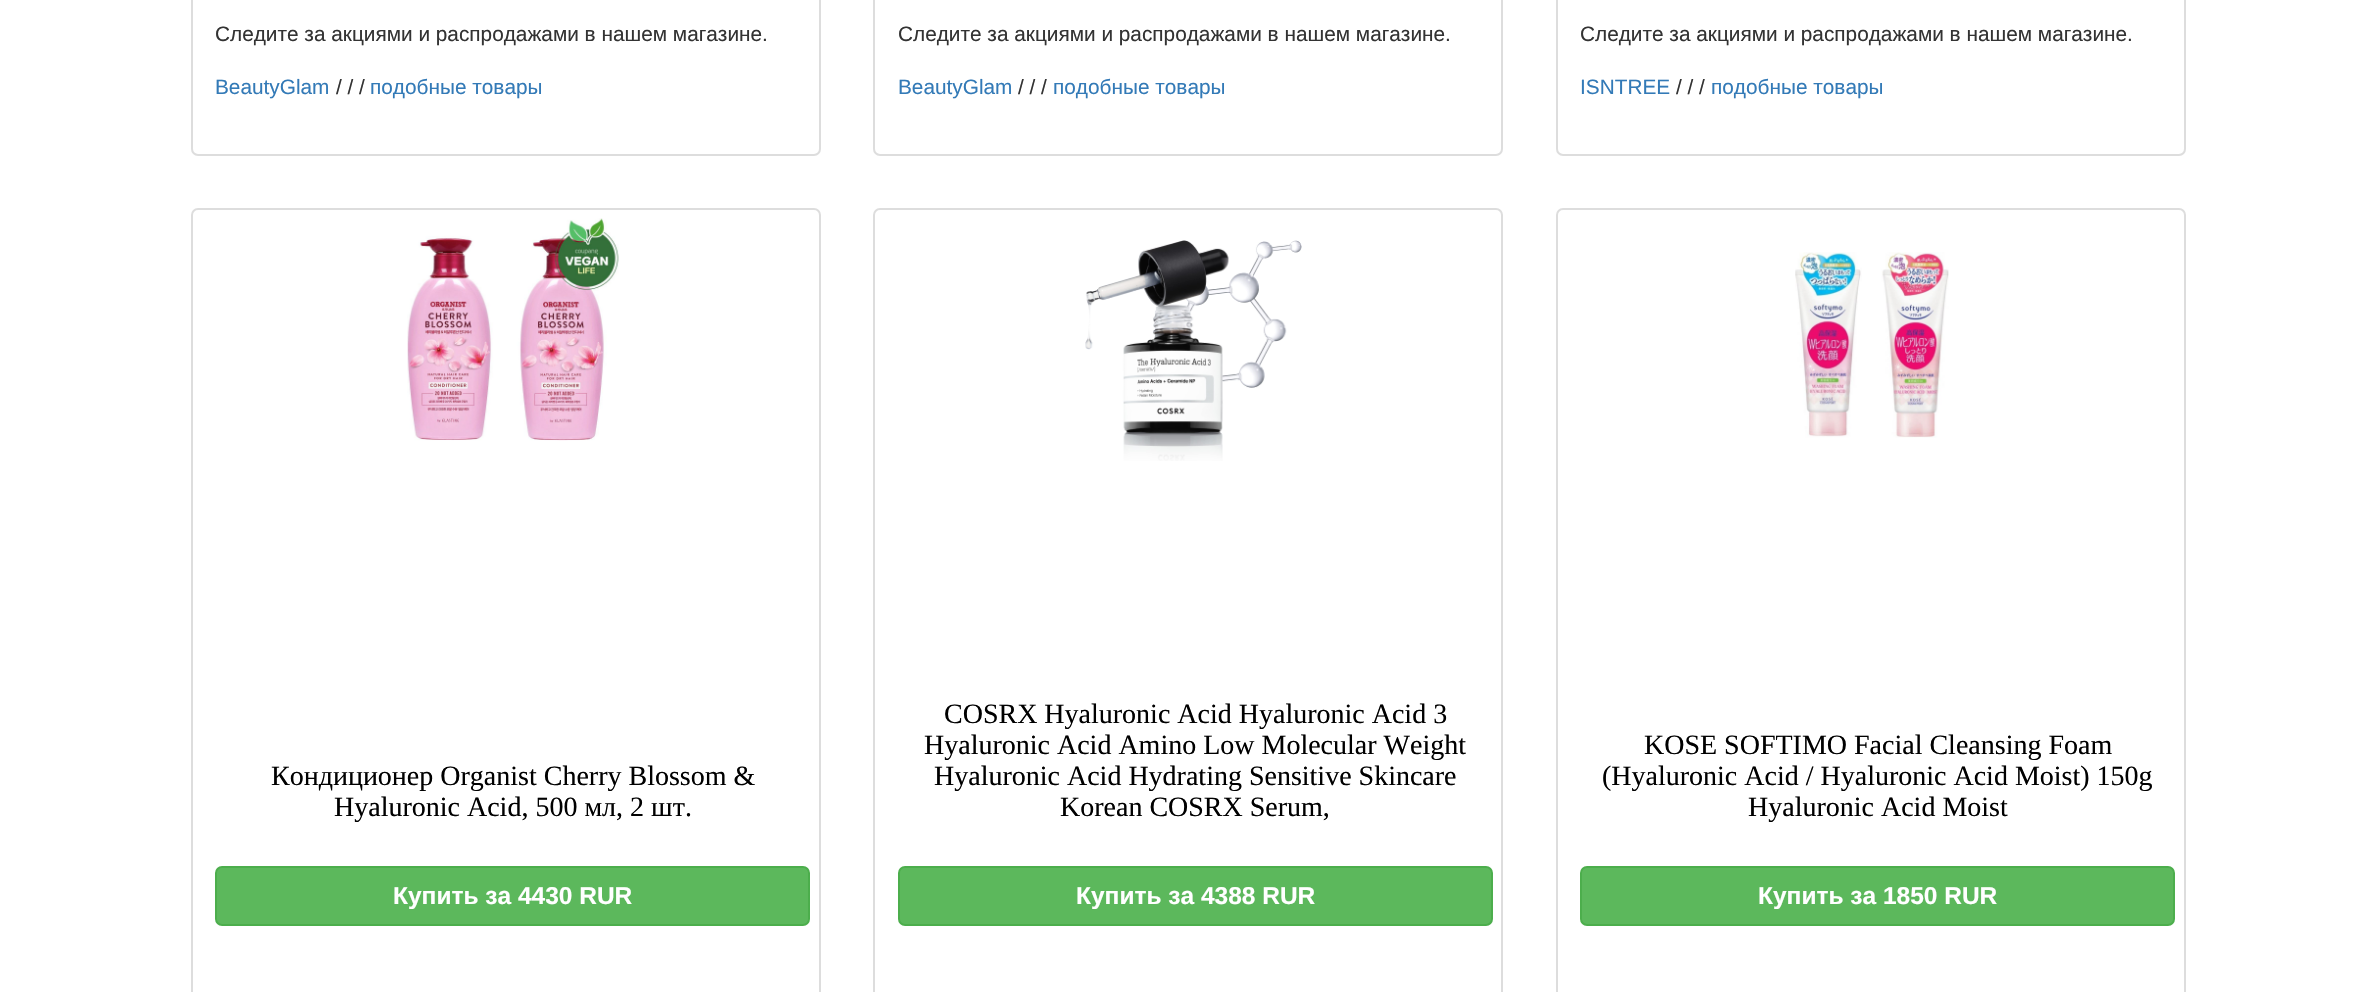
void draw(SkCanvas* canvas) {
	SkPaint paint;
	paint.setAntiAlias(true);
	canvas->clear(0xffffffff);
	paint.setStroke(true);
	paint.setStrokeWidth(2);
	paint.setColor(0xffdddddd);
	canvas->drawRoundRect(SkRect::MakeXYWH(192, -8, 628, 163), 6, 6, paint);
	SkFont f1(fontMgr->matchFamilyStyle("Liberation Sans", SkFontStyle::Normal()), 20.8);
	f1.setSubpixel(true);
	paint.setStroke(false);
	paint.setColor(0xff333333);
	canvas->drawString("Следите за акциями и распродажами в нашем магазине.", 215, 41, f1, paint);
	paint.setColor(0xff337ab7);
	canvas->drawString("BeautyGlam", 215, 94, f1, paint);
	paint.setColor(0xff333333);
	canvas->drawString("/ / /", 336, 94, f1, paint);
	paint.setColor(0xff337ab7);
	canvas->drawString("подобные товары", 370, 94, f1, paint);
	paint.setStroke(true);
	paint.setColor(0xffdddddd);
	canvas->drawRoundRect(SkRect::MakeXYWH(874, -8, 628, 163), 6, 6, paint);
	paint.setStroke(false);
	paint.setColor(0xff333333);
	canvas->drawString("Следите за акциями и распродажами в нашем магазине.", 898, 41, f1, paint);
	paint.setColor(0xff337ab7);
	canvas->drawString("BeautyGlam", 898, 94, f1, paint);
	paint.setColor(0xff333333);
	canvas->drawString("/ / /", 1018, 94, f1, paint);
	paint.setColor(0xff337ab7);
	canvas->drawString("подобные товары", 1053, 94, f1, paint);
	paint.setStroke(true);
	paint.setColor(0xffdddddd);
	canvas->drawRoundRect(SkRect::MakeXYWH(1557, -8, 628, 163), 6, 6, paint);
	paint.setStroke(false);
	paint.setColor(0xff333333);
	canvas->drawString("Следите за акциями и распродажами в нашем магазине.", 1580, 41, f1, paint);
	paint.setColor(0xff337ab7);
	canvas->drawString("ISNTREE", 1580, 94, f1, paint);
	paint.setColor(0xff333333);
	canvas->drawString("/ / /", 1676, 94, f1, paint);
	paint.setColor(0xff337ab7);
	canvas->drawString("подобные товары", 1711, 94, f1, paint);
	paint.setStroke(true);
	paint.setColor(0xffdddddd);
	canvas->drawRoundRect(SkRect::MakeXYWH(192, 209, 628, 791), 6, 6, paint);
	canvas->drawImageRect(SkImages::DeferredFromEncodedData(SkData::MakeFromFileName("img1.png")), SkRect::MakeXYWH(407, 218, 212, 223), SkSamplingOptions());
	SkFont f2(fontMgr->matchFamilyStyle("Liberation Serif", SkFontStyle::Normal()), 28);
	f2.setSubpixel(true);
	paint.setStroke(false);
	paint.setColor(0xff000000);
	canvas->drawString("Кондиционер Organist Cherry Blossom &", 271, 785, f2, paint);
	canvas->drawString("Hyaluronic Acid, 500 мл, 2 шт.", 334, 816, f2, paint);
	paint.setColor(0xff5cb85c);
	canvas->drawRoundRect(SkRect::MakeXYWH(216, 867, 593, 58), 6, 6, paint);
	paint.setStroke(true);
	paint.setColor(0xff4cae4c);
	canvas->drawRoundRect(SkRect::MakeXYWH(216, 867, 593, 58), 6, 6, paint);
	SkFont f3(fontMgr->matchFamilyStyle("Liberation Sans", SkFontStyle::Bold()), 24.5);
	f3.setSubpixel(true);
	paint.setStroke(false);
	paint.setColor(0xffffffff);
	canvas->drawString("Купить за 4430 RUR", 393, 904, f3, paint);
	paint.setStroke(true);
	paint.setColor(0xffdddddd);
	canvas->drawRoundRect(SkRect::MakeXYWH(874, 209, 628, 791), 6, 6, paint);
	canvas->drawImageRect(SkImages::DeferredFromEncodedData(SkData::MakeFromFileName("img2.png")), SkRect::MakeXYWH(1085, 240, 217, 221), SkSamplingOptions());
	paint.setStroke(false);
	paint.setColor(0xff000000);
	canvas->drawString("COSRX Hyaluronic Acid Hyaluronic Acid 3", 944, 723, f2, paint);
	canvas->drawString("Hyaluronic Acid Amino Low Molecular Weight", 924, 754, f2, paint);
	canvas->drawString("Hyaluronic Acid Hydrating Sensitive Skincare", 934, 785, f2, paint);
	canvas->drawString("Korean COSRX Serum,", 1060, 816, f2, paint);
	paint.setColor(0xff5cb85c);
	canvas->drawRoundRect(SkRect::MakeXYWH(899, 867, 593, 58), 6, 6, paint);
	paint.setStroke(true);
	paint.setColor(0xff4cae4c);
	canvas->drawRoundRect(SkRect::MakeXYWH(899, 867, 593, 58), 6, 6, paint);
	paint.setStroke(false);
	paint.setColor(0xffffffff);
	canvas->drawString("Купить за 4388 RUR", 1076, 904, f3, paint);
	paint.setStroke(true);
	paint.setColor(0xffdddddd);
	canvas->drawRoundRect(SkRect::MakeXYWH(1557, 209, 628, 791), 6, 6, paint);
	canvas->drawImageRect(SkImages::DeferredFromEncodedData(SkData::MakeFromFileName("img3.png")), SkRect::MakeXYWH(1795, 252, 154, 186), SkSamplingOptions());
	paint.setStroke(false);
	paint.setColor(0xff000000);
	canvas->drawString("KOSE SOFTIMO Facial Cleansing Foam", 1644, 754, f2, paint);
	canvas->drawString("(Hyaluronic Acid / Hyaluronic Acid Moist) 150g", 1602, 785, f2, paint);
	canvas->drawString("Hyaluronic Acid Moist", 1748, 816, f2, paint);
	paint.setColor(0xff5cb85c);
	canvas->drawRoundRect(SkRect::MakeXYWH(1581, 867, 593, 58), 6, 6, paint);
	paint.setStroke(true);
	paint.setColor(0xff4cae4c);
	canvas->drawRoundRect(SkRect::MakeXYWH(1581, 867, 593, 58), 6, 6, paint);
	paint.setStroke(false);
	paint.setColor(0xffffffff);
	canvas->drawString("Купить за 1850 RUR", 1758, 904, f3, paint);
}
